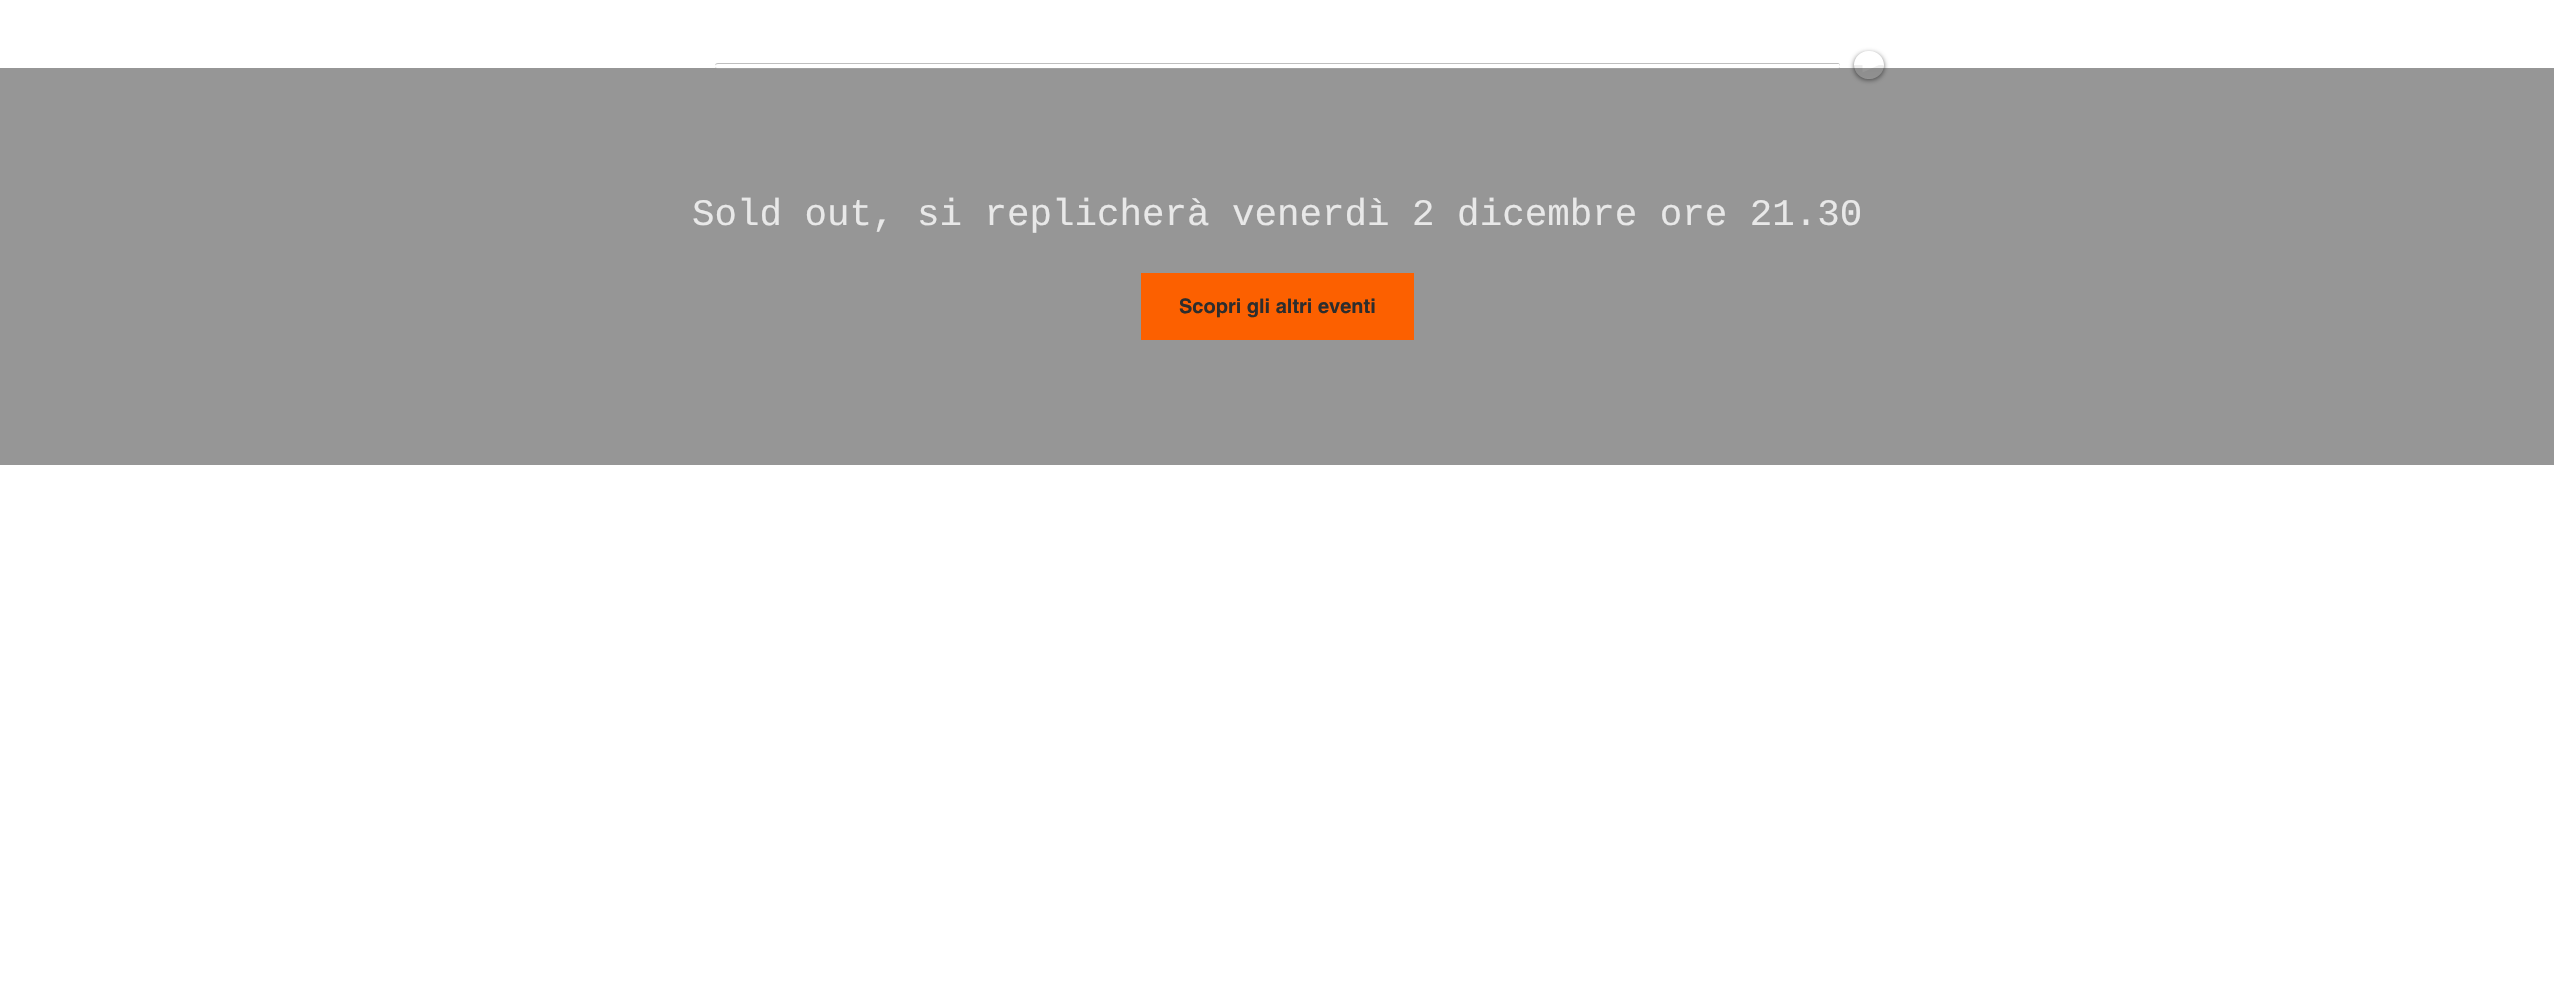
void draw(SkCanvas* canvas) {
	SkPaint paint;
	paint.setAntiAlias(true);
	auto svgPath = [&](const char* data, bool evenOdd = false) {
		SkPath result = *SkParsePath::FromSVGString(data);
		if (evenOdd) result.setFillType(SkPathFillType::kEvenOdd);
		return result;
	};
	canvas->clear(0xffffffff);
	canvas->save();
	canvas->clipPath(svgPath("M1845 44H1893V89H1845ZM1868 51H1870C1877.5 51 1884 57.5 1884 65C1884 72.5 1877.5 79 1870 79H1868C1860.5 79 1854 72.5 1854 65C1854 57.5 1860.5 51 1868 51Z", true), true);
	paint.setColor(0x99000000);
	paint.setMaskFilter(SkMaskFilter::MakeBlur(kNormal_SkBlurStyle, 2.5));
	canvas->drawRoundRect(SkRect::MakeXYWH(1854, 53, 30, 27), 13.5, 13.5, paint);
	paint.setMaskFilter(nullptr);
	canvas->restore();
	canvas->drawImageRect(SkImages::DeferredFromEncodedData(SkData::MakeFromFileName("img1.png")), SkRect::MakeXYWH(1854, 65, 30, 14), SkSamplingOptions());
	paint.setColor(0xffffffff);
	canvas->drawPath(svgPath("M1862.5 72.5V57.5L1879 65Z"), paint);
	paint.setColor(0x802d2d2d);
	canvas->drawRect(SkRect::MakeXYWH(0, 68, 2554, 397), paint);
	paint.setColor(0xffa1a1a1);
	canvas->drawPath(svgPath("M715 66C715 67 716 69 718 69H1838C1839 69 1840 67 1840 66C1840 67 1839 68 1838 68H718C716 68 715 67 715 66Z"), paint);
	paint.setColor(0xffffffff);
	canvas->drawRoundRect(SkRect::MakeXYWH(715, 63, 1125, 5), 2.5, 2.5, paint);
	paint.setColor(0xffbfbfbf);
	canvas->drawPath(svgPath("M718 64H1839L1840 66C1840 64 1839 63 1838 63H718C716 63 715 64 715 66C715 65 716 64 718 64Z"), paint);
	SkFont f1(fontMgr->matchFamilyStyle("Liberation Mono", SkFontStyle::Normal()), 37.5);
	f1.setSubpixel(true);
	paint.setColor(0xffe8e8e8);
	canvas->drawString("Sold out, si replicherà venerdì 2 dicembre ore 21.30", 692, 225, f1, paint);
	paint.setColor(0xfffc6000);
	canvas->drawRect(SkRect::MakeXYWH(1141, 273, 273, 67), paint);
	SkFont f2(fontMgr->matchFamilyStyle("helvetica", SkFontStyle::Bold()), 20);
	f2.setSubpixel(true);
	paint.setColor(0xff2d2d2d);
	canvas->drawString("Scopri gli altri eventi", 1179, 313, f2, paint);
}
